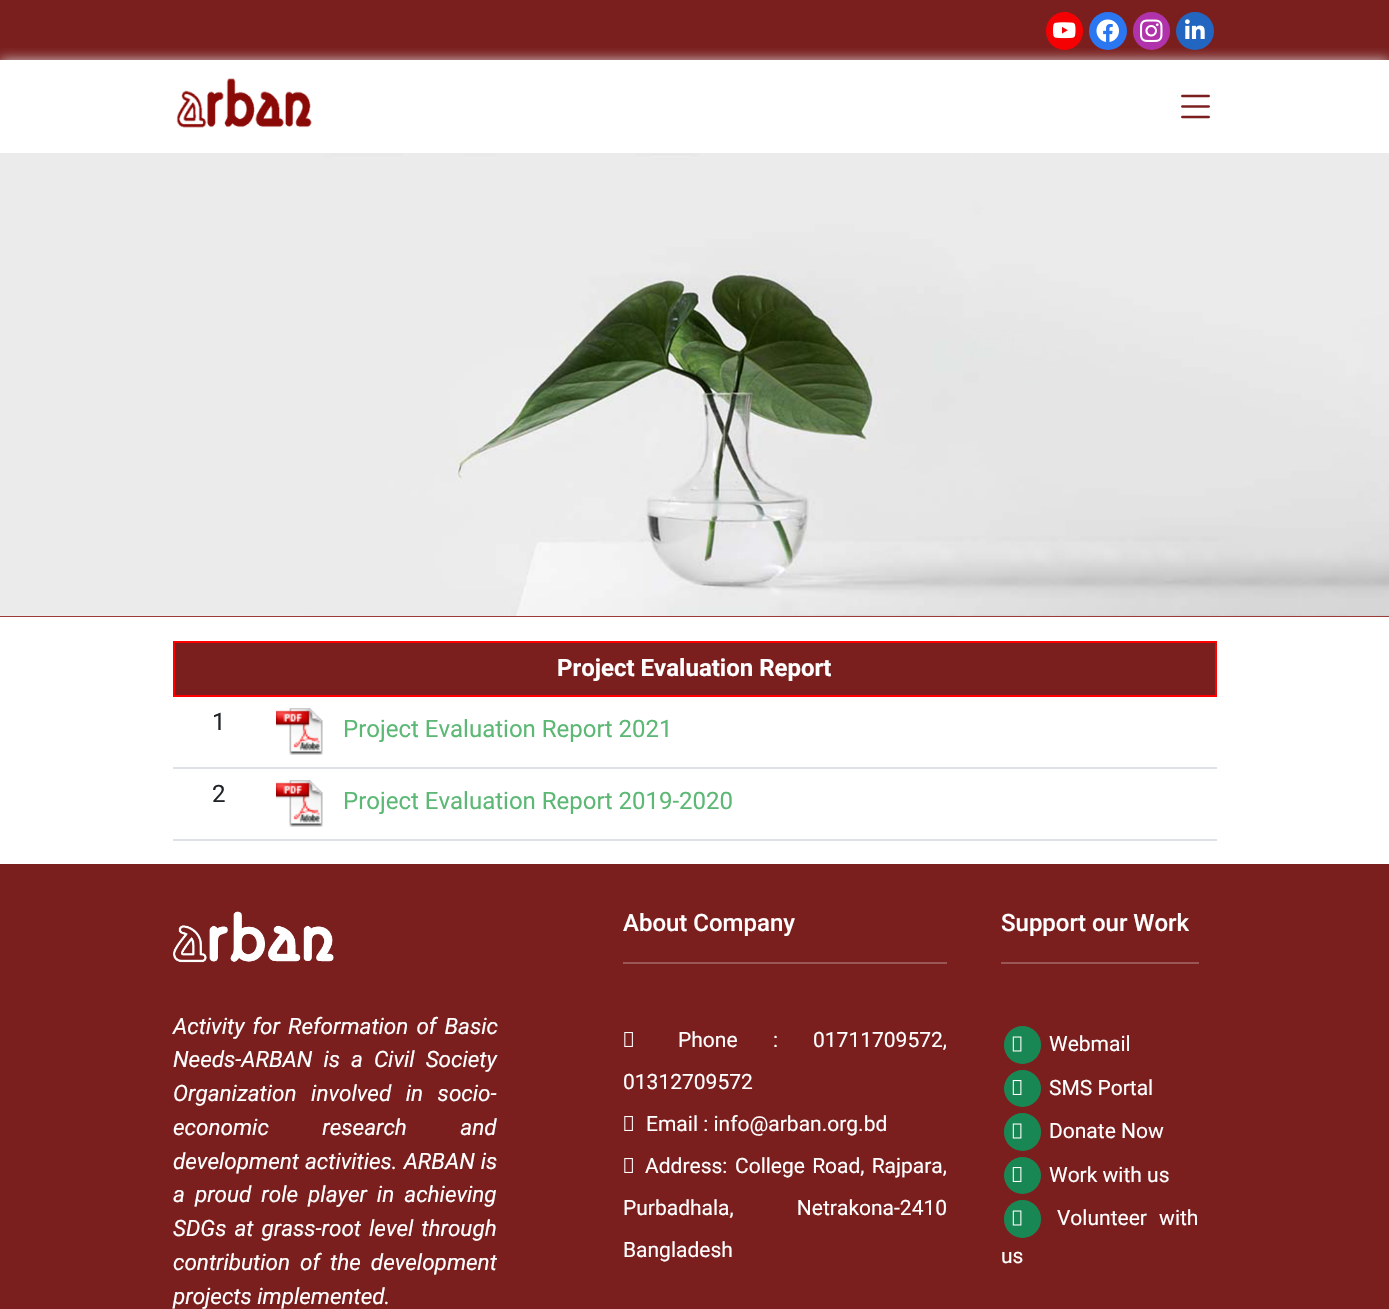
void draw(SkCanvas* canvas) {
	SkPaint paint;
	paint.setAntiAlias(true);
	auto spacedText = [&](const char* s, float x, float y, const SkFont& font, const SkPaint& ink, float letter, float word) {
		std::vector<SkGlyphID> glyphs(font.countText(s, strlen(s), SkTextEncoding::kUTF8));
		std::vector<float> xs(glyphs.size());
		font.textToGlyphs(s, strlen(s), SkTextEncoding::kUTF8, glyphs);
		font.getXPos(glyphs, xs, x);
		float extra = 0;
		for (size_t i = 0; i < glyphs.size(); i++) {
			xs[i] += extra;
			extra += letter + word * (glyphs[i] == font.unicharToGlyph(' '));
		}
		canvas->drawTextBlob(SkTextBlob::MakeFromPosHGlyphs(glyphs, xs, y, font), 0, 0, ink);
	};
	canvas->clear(0xffffffff);
	paint.setColor(0xff7a1e1e);
	canvas->drawRect(SkRect::MakeXYWH(0, 0, 1389, 60), paint);
	canvas->save();
	canvas->clipRect(SkRect::MakeXYWH(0, 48, 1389, 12));
	paint.setColor(0xffd2cece);
	paint.setMaskFilter(SkMaskFilter::MakeBlur(kNormal_SkBlurStyle, 6));
	canvas->drawRect(SkRect::MakeXYWH(0, 60, 1389, 93), paint);
	paint.setMaskFilter(nullptr);
	canvas->restore();
	paint.setColor(0xfff50103);
	canvas->drawRoundRect(SkRect::MakeXYWH(1046, 12, 37, 38), 18.5, 18.5, paint);
	canvas->drawImageRect(SkImages::DeferredFromEncodedData(SkData::MakeFromFileName("img1.png")), SkRect::MakeXYWH(1053, 22, 23, 17), SkSamplingOptions());
	paint.setColor(0xff2b77f2);
	canvas->drawCircle(1108, 31, 19, paint);
	canvas->drawImageRect(SkImages::DeferredFromEncodedData(SkData::MakeFromFileName("img2.png")), SkRect::MakeXYWH(1096, 19, 23, 23), SkSamplingOptions());
	paint.setColor(0xffb033ab);
	canvas->drawRoundRect(SkRect::MakeXYWH(1133, 12, 37, 38), 18.5, 18.5, paint);
	canvas->drawImageRect(SkImages::DeferredFromEncodedData(SkData::MakeFromFileName("img3.png")), SkRect::MakeXYWH(1140, 19, 23, 23), SkSamplingOptions());
	paint.setColor(0xff2266c2);
	canvas->drawCircle(1195, 31, 19, paint);
	canvas->drawImageRect(SkImages::DeferredFromEncodedData(SkData::MakeFromFileName("img4.png")), SkRect::MakeXYWH(1185, 19, 20, 20), SkSamplingOptions());
	canvas->drawImageRect(SkImages::DeferredFromEncodedData(SkData::MakeFromFileName("img5.png")), SkRect::MakeXYWH(176, 78, 136, 50), SkSamplingOptions());
	canvas->drawImageRect(SkImages::DeferredFromEncodedData(SkData::MakeFromFileName("img6.png")), SkRect::MakeXYWH(1181, 94, 29, 25), SkSamplingOptions());
	paint.setColor(0xff800000);
	canvas->drawRect(SkRect::MakeXYWH(0, 616, 1389, 1), paint);
	canvas->drawImageRect(SkImages::DeferredFromEncodedData(SkData::MakeFromFileName("img7.png")), SkRect::MakeXYWH(0, 153, 1389, 464), SkSamplingOptions());
	paint.setColor(0xff7a1e1e);
	canvas->drawRect(SkRect::MakeXYWH(175, 643, 1040, 52), paint);
	paint.setColor(0xffff0000);
	canvas->drawRect(SkRect::MakeXYWH(173, 641, 1044, 2), paint);
	canvas->drawRect(SkRect::MakeXYWH(1215, 641, 2, 55), paint);
	canvas->drawRect(SkRect::MakeXYWH(173, 695, 1044, 2), paint);
	canvas->drawRect(SkRect::MakeXYWH(173, 641, 2, 55), paint);
	SkFont f1(fontMgr->matchFamilyStyle("Roboto", SkFontStyle::Bold()), 24);
	f1.setSubpixel(true);
	paint.setColor(0xffffffff);
	canvas->drawString("Project Evaluation Report", 557, 676, f1, paint);
	SkFont f2(fontMgr->matchFamilyStyle("Roboto", SkFontStyle::Normal()), 24);
	f2.setSubpixel(true);
	paint.setColor(0xff212529);
	canvas->drawString("1", 212, 730, f2, paint);
	paint.setColor(0xffdee2e6);
	canvas->drawRect(SkRect::MakeXYWH(173, 767, 1044, 2), paint);
	canvas->drawImageRect(SkImages::DeferredFromEncodedData(SkData::MakeFromFileName("img8.png")), SkRect::MakeXYWH(276, 708, 47, 47), SkSamplingOptions());
	paint.setColor(0xff5cb874);
	canvas->drawString("Project Evaluation Report 2021", 343, 737, f2, paint);
	paint.setColor(0xff212529);
	canvas->drawString("2", 212, 802, f2, paint);
	paint.setColor(0xffdee2e6);
	canvas->drawRect(SkRect::MakeXYWH(173, 839, 1044, 2), paint);
	canvas->drawImageRect(SkImages::DeferredFromEncodedData(SkData::MakeFromFileName("img8.png")), SkRect::MakeXYWH(276, 780, 47, 47), SkSamplingOptions());
	paint.setColor(0xff5cb874);
	canvas->drawString("Project Evaluation Report 2019-2020", 343, 809, f2, paint);
	paint.setColor(0xff7a1e1e);
	canvas->drawRect(SkRect::MakeXYWH(0, 864, 1389, 445), paint);
	canvas->drawImageRect(SkImages::DeferredFromEncodedData(SkData::MakeFromFileName("img9.png")), SkRect::MakeXYWH(173, 911, 161, 52), SkSamplingOptions());
	SkFont f3(fontMgr->matchFamilyStyle("Roboto", SkFontStyle::Italic()), 22.5);
	f3.setSubpixel(true);
	paint.setColor(0xffffffff);
	spacedText("Activity for Reformation of Basic", 173, 1034, f3, paint, 0, 2.5);
	spacedText("Needs-ARBAN is a Civil Society", 173, 1067, f3, paint, 0, 5.5);
	spacedText("Organization involved in socio-", 173, 1101, f3, paint, 0, 9);
	spacedText("economic research and", 173, 1135, f3, paint, 0, 48);
	spacedText("development activities. ARBAN is", 173, 1169, f3, paint, 0, 0.5);
	spacedText("a proud role player in achieving", 173, 1202, f3, paint, 0, 4.5);
	spacedText("SDGs at grass-root level through", 173, 1236, f3, paint, 0, 2.5);
	spacedText("contribution of the development", 173, 1270, f3, paint, 0, 4.5);
	canvas->drawString("projects implemented.", 173, 1304, f3, paint);
	SkFont f4(fontMgr->matchFamilyStyle("Roboto", SkFontStyle(500, SkFontStyle::kNormal_Width, SkFontStyle::kUpright_Slant)), 24);
	f4.setSubpixel(true);
	canvas->drawString("About Company", 623, 931, f4, paint);
	paint.setColor(0xff9b5656);
	canvas->drawRect(SkRect::MakeXYWH(623, 962, 324, 2), paint);
	canvas->drawImageRect(SkImages::DeferredFromEncodedData(SkData::MakeFromFileName("img10.png")), SkRect::MakeXYWH(624, 1032, 9, 15), SkSamplingOptions());
	SkFont f5(fontMgr->matchFamilyStyle("Roboto", SkFontStyle::Normal()), 21);
	f5.setSubpixel(true);
	paint.setColor(0xffffffff);
	canvas->drawString("Phone", 678, 1047, f5, paint);
	canvas->drawString(":", 773, 1047, f5, paint);
	canvas->drawString("01711709572,", 813, 1047, f5, paint);
	canvas->drawString("01312709572", 623, 1089, f5, paint);
	canvas->drawImageRect(SkImages::DeferredFromEncodedData(SkData::MakeFromFileName("img10.png")), SkRect::MakeXYWH(624, 1116, 9, 15), SkSamplingOptions());
	canvas->drawString("Email : info@arban.org.bd", 646, 1131, f5, paint);
	canvas->drawImageRect(SkImages::DeferredFromEncodedData(SkData::MakeFromFileName("img10.png")), SkRect::MakeXYWH(624, 1158, 9, 15), SkSamplingOptions());
	canvas->drawString("Address:", 645, 1173, f5, paint);
	spacedText("College Road, Rajpara,", 735, 1173, f5, paint, 0, 2);
	spacedText("Purbadhala, Netrakona-2410", 623, 1215, f5, paint, 0, 58);
	canvas->drawString("Bangladesh", 623, 1257, f5, paint);
	canvas->drawString("Support our Work", 1001, 931, f4, paint);
	paint.setColor(0xff9b5656);
	canvas->drawRect(SkRect::MakeXYWH(1001, 962, 198, 2), paint);
	paint.setColor(0xff198754);
	canvas->drawRoundRect(SkRect::MakeXYWH(1004, 1026, 37, 38), 18.5, 18.5, paint);
	canvas->drawImageRect(SkImages::DeferredFromEncodedData(SkData::MakeFromFileName("img11.png")), SkRect::MakeXYWH(1012, 1036, 10, 16), SkSamplingOptions());
	paint.setColor(0xffffffff);
	canvas->drawString("Webmail", 1049, 1051, f5, paint);
	paint.setColor(0xff198754);
	canvas->drawCircle(1022.5, 1088.5, 18.5, paint);
	canvas->drawImageRect(SkImages::DeferredFromEncodedData(SkData::MakeFromFileName("img12.png")), SkRect::MakeXYWH(1012, 1080, 10, 15), SkSamplingOptions());
	paint.setColor(0xffffffff);
	canvas->drawString("SMS Portal", 1049, 1095, f5, paint);
	paint.setColor(0xff198754);
	canvas->drawRoundRect(SkRect::MakeXYWH(1004, 1113, 37, 38), 18.5, 18.5, paint);
	canvas->drawImageRect(SkImages::DeferredFromEncodedData(SkData::MakeFromFileName("img11.png")), SkRect::MakeXYWH(1012, 1123, 10, 16), SkSamplingOptions());
	paint.setColor(0xffffffff);
	canvas->drawString("Donate Now", 1049, 1138, f5, paint);
	paint.setColor(0xff198754);
	canvas->drawCircle(1022.5, 1175.5, 18.5, paint);
	canvas->drawImageRect(SkImages::DeferredFromEncodedData(SkData::MakeFromFileName("img12.png")), SkRect::MakeXYWH(1012, 1167, 10, 15), SkSamplingOptions());
	paint.setColor(0xffffffff);
	canvas->drawString("Work with us", 1049, 1182, f5, paint);
	paint.setColor(0xff198754);
	canvas->drawRoundRect(SkRect::MakeXYWH(1004, 1200, 37, 38), 18.5, 18.5, paint);
	canvas->drawImageRect(SkImages::DeferredFromEncodedData(SkData::MakeFromFileName("img11.png")), SkRect::MakeXYWH(1012, 1210, 10, 16), SkSamplingOptions());
	paint.setColor(0xffffffff);
	spacedText("Volunteer with", 1057, 1225, f5, paint, 0, 7);
	canvas->drawString("us", 1001, 1263, f5, paint);
}
